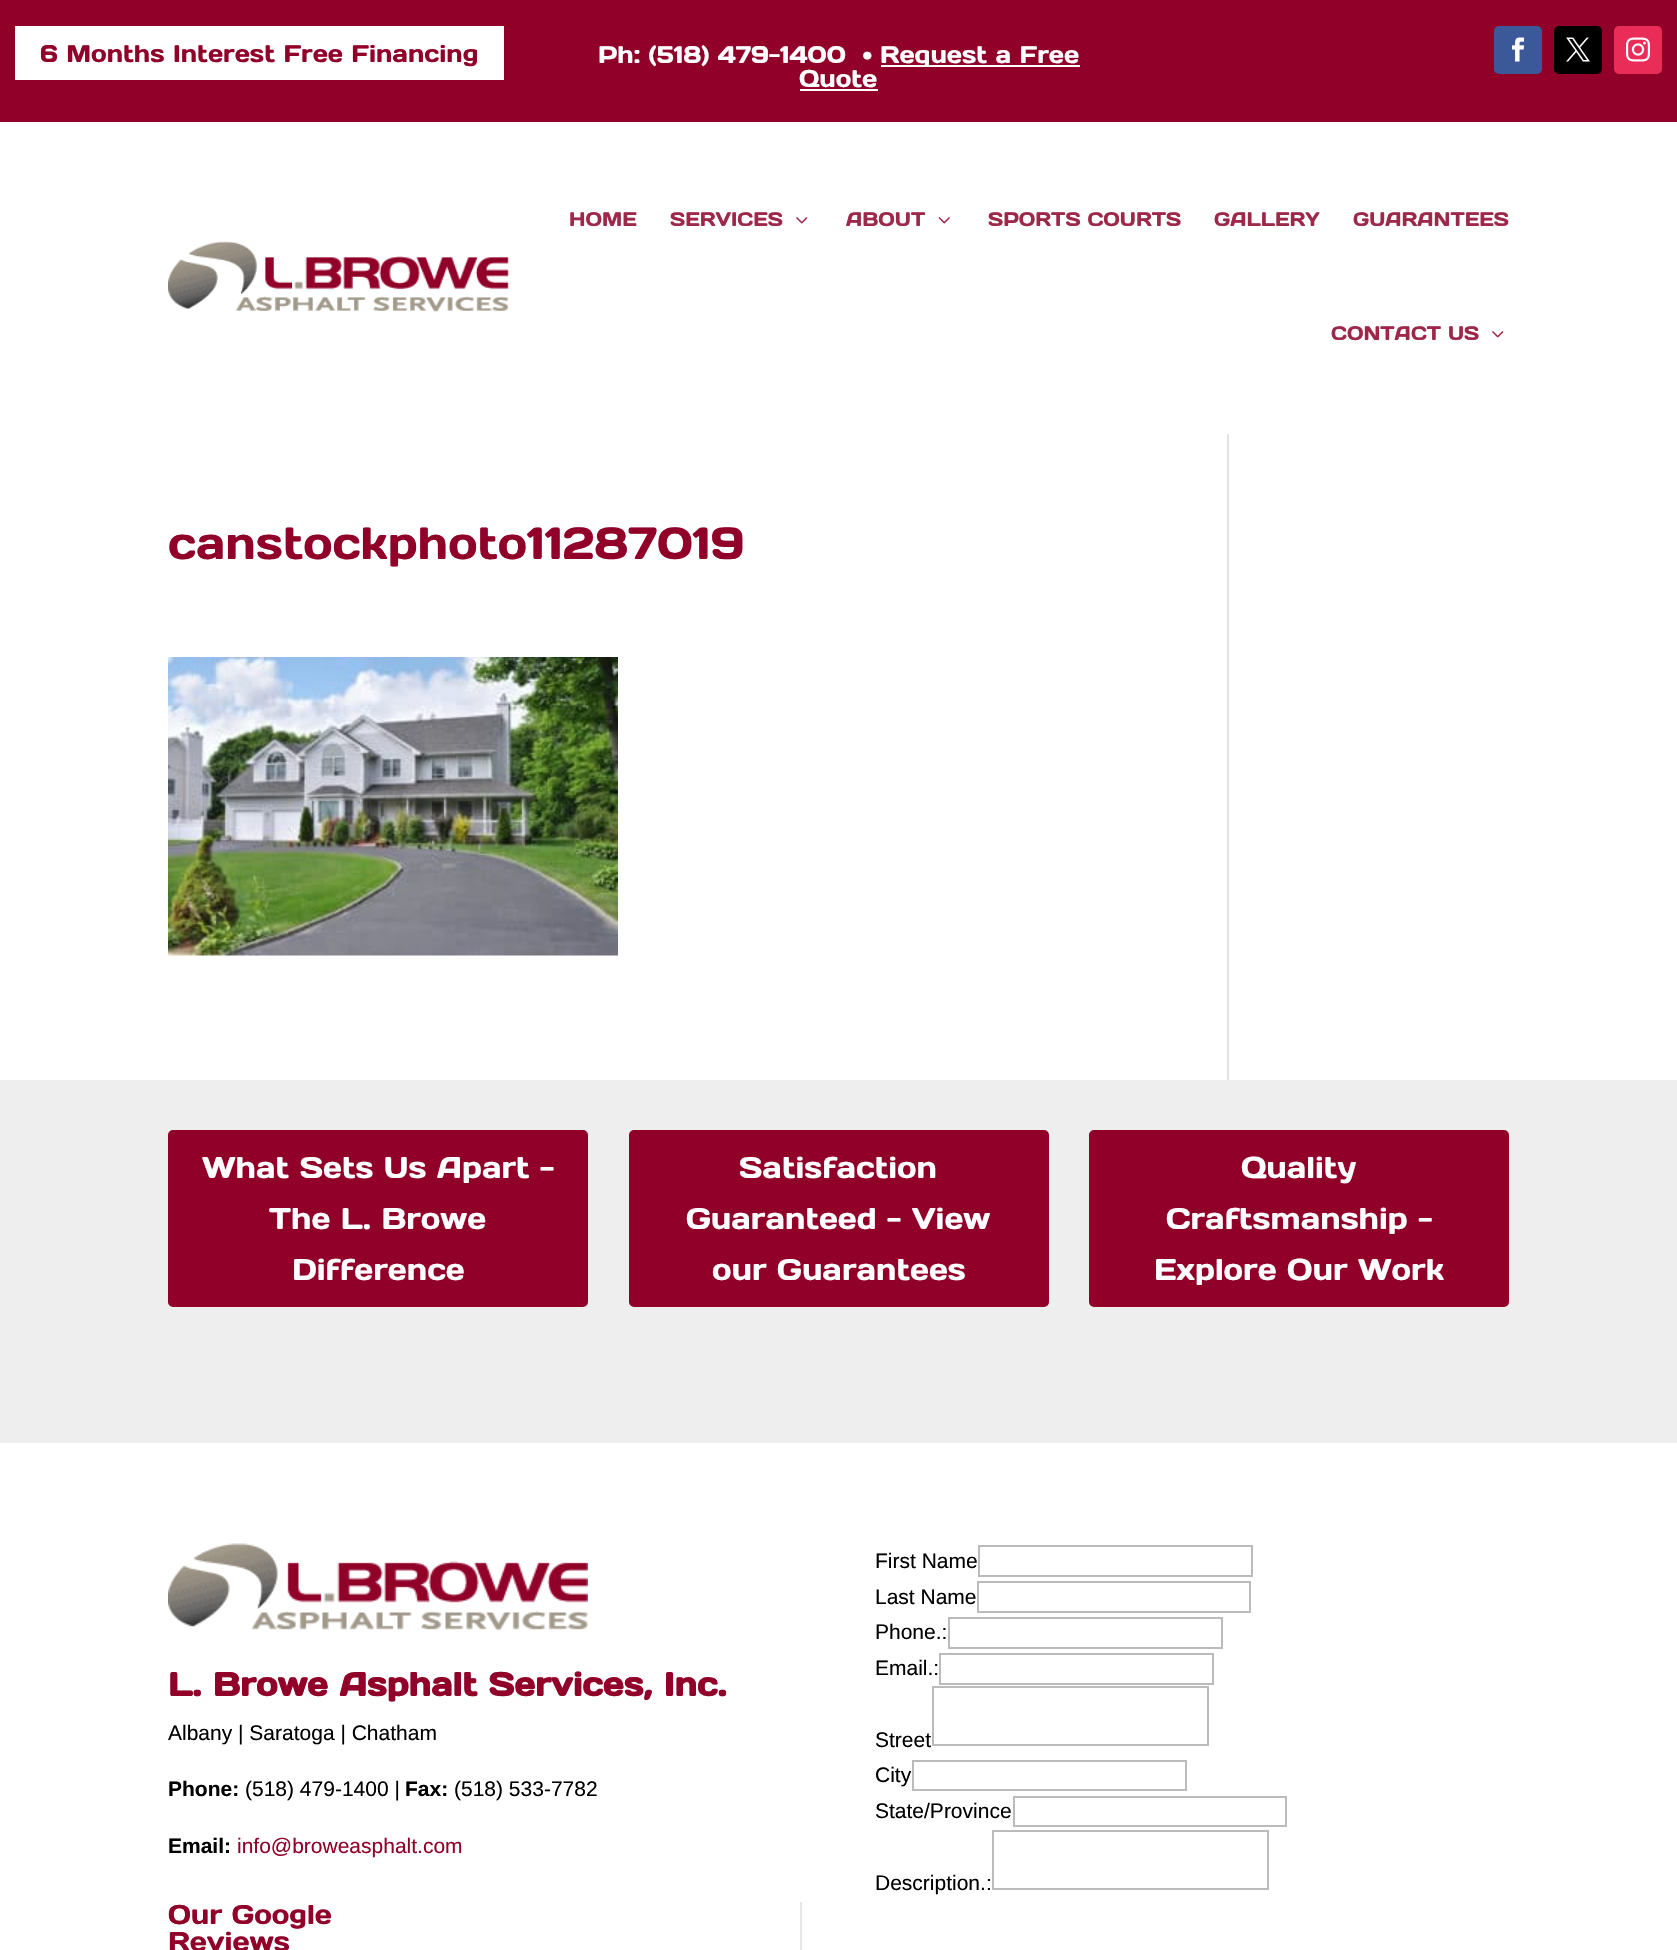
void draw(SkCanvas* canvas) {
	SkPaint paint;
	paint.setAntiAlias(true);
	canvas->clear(0xffffffff);
	paint.setColor(0xff900028);
	canvas->drawRect(SkRect::MakeXYWH(0, 0, 1677, 122), paint);
	paint.setColor(0xffffffff);
	canvas->drawRect(SkRect::MakeXYWH(15, 26, 489, 54), paint);
	SkFont f1(fontMgr->matchFamilyStyle("Days One", SkFontStyle::Normal()), 24);
	f1.setSubpixel(true);
	paint.setColor(0xff900028);
	canvas->drawString("6 Months Interest Free Financing", 40, 62, f1, paint);
	paint.setColor(0xffffffff);
	canvas->drawString("Ph: (518) 479-1400  •", 598, 63, f1, paint);
	canvas->drawRect(SkRect::MakeXYWH(881, 65, 199, 2), paint);
	canvas->drawString("Request a Free", 880, 63, f1, paint);
	canvas->drawString("Quote", 799, 87, f1, paint);
	canvas->drawRect(SkRect::MakeXYWH(800, 89, 78, 2), paint);
	paint.setColor(0xff3b5998);
	canvas->drawRoundRect(SkRect::MakeXYWH(1494, 26, 48, 48), 5, 5, paint);
	canvas->drawImageRect(SkImages::DeferredFromEncodedData(SkData::MakeFromFileName("img1.png")), SkRect::MakeXYWH(1512, 37, 13, 25), SkSamplingOptions());
	paint.setColor(0xff000000);
	canvas->drawRoundRect(SkRect::MakeXYWH(1554, 26, 48, 48), 5, 5, paint);
	canvas->drawImageRect(SkImages::DeferredFromEncodedData(SkData::MakeFromFileName("img2.png")), SkRect::MakeXYWH(1566, 37, 24, 25), SkSamplingOptions());
	paint.setColor(0xffea2c59);
	canvas->drawRoundRect(SkRect::MakeXYWH(1614, 26, 48, 48), 5, 5, paint);
	canvas->drawImageRect(SkImages::DeferredFromEncodedData(SkData::MakeFromFileName("img3.png")), SkRect::MakeXYWH(1626, 37, 24, 25), SkSamplingOptions());
	canvas->drawImageRect(SkImages::DeferredFromEncodedData(SkData::MakeFromFileName("img4.png")), SkRect::MakeXYWH(168, 241, 341, 71), SkSamplingOptions());
	SkFont f2(fontMgr->matchFamilyStyle("Days One", SkFontStyle::Normal()), 19.5);
	f2.setSubpixel(true);
	paint.setColor(0xff9e2849);
	canvas->drawString("HOME", 569, 226, f2, paint);
	canvas->drawString("SERVICES", 670, 226, f2, paint);
	canvas->drawImageRect(SkImages::DeferredFromEncodedData(SkData::MakeFromFileName("img5.png")), SkRect::MakeXYWH(796, 217, 12, 7), SkSamplingOptions());
	canvas->drawString("ABOUT", 846, 226, f2, paint);
	canvas->drawImageRect(SkImages::DeferredFromEncodedData(SkData::MakeFromFileName("img6.png")), SkRect::MakeXYWH(938, 217, 12, 7), SkSamplingOptions());
	canvas->drawString("SPORTS COURTS", 988, 226, f2, paint);
	canvas->drawString("GALLERY", 1214, 226, f2, paint);
	canvas->drawString("GUARANTEES", 1353, 226, f2, paint);
	canvas->drawString("CONTACT US", 1331, 340, f2, paint);
	canvas->drawImageRect(SkImages::DeferredFromEncodedData(SkData::MakeFromFileName("img5.png")), SkRect::MakeXYWH(1492, 331, 12, 7), SkSamplingOptions());
	SkFont f3(fontMgr->matchFamilyStyle("Days One", SkFontStyle::Normal()), 45);
	f3.setSubpixel(true);
	paint.setColor(0xff900028);
	canvas->drawString("canstockphoto11287019", 168, 559, f3, paint);
	canvas->drawImageRect(SkImages::DeferredFromEncodedData(SkData::MakeFromFileName("img7.png")), SkRect::MakeXYWH(168, 657, 450, 299), SkSamplingOptions());
	paint.setColor(0xffe2e2e2);
	canvas->drawRect(SkRect::MakeXYWH(1227, 434, 2, 646), paint);
	paint.setColor(0xffeeeeee);
	canvas->drawRect(SkRect::MakeXYWH(0, 1080, 1677, 363), paint);
	paint.setColor(0xff900028);
	canvas->drawRoundRect(SkRect::MakeXYWH(169.5, 1131.5, 417, 174), 3.5, 3.5, paint);
	paint.setStroke(true);
	paint.setStrokeWidth(3);
	canvas->drawRoundRect(SkRect::MakeXYWH(169.5, 1131.5, 417, 174), 3.5, 3.5, paint);
	SkFont f4(fontMgr->matchFamilyStyle("Days One", SkFontStyle::Normal()), 30);
	f4.setSubpixel(true);
	paint.setStroke(false);
	paint.setColor(0xffffffff);
	canvas->drawString("What Sets Us Apart -", 202, 1178, f4, paint);
	canvas->drawString("The L. Browe", 269, 1229, f4, paint);
	canvas->drawString("Difference", 292, 1280, f4, paint);
	paint.setColor(0xff900028);
	canvas->drawRoundRect(SkRect::MakeXYWH(630.5, 1131.5, 417, 174), 3.5, 3.5, paint);
	paint.setStroke(true);
	canvas->drawRoundRect(SkRect::MakeXYWH(630.5, 1131.5, 417, 174), 3.5, 3.5, paint);
	paint.setStroke(false);
	paint.setColor(0xffffffff);
	canvas->drawString("Satisfaction", 739, 1178, f4, paint);
	canvas->drawString("Guaranteed - View", 686, 1229, f4, paint);
	canvas->drawString("our Guarantees", 712, 1280, f4, paint);
	paint.setColor(0xff900028);
	canvas->drawRoundRect(SkRect::MakeXYWH(1090.5, 1131.5, 417, 174), 3.5, 3.5, paint);
	paint.setStroke(true);
	canvas->drawRoundRect(SkRect::MakeXYWH(1090.5, 1131.5, 417, 174), 3.5, 3.5, paint);
	paint.setStroke(false);
	paint.setColor(0xffffffff);
	canvas->drawString("Quality", 1241, 1178, f4, paint);
	canvas->drawString("Craftsmanship -", 1166, 1229, f4, paint);
	canvas->drawString("Explore Our Work", 1154, 1280, f4, paint);
	canvas->drawImageRect(SkImages::DeferredFromEncodedData(SkData::MakeFromFileName("img8.png")), SkRect::MakeXYWH(168, 1543, 420, 88), SkSamplingOptions());
	SkFont f5(fontMgr->matchFamilyStyle("Days One", SkFontStyle::Bold()), 33);
	f5.setSubpixel(true);
	paint.setColor(0xff900028);
	canvas->drawString("L. Browe Asphalt Services, Inc.", 168, 1696, f5, paint);
	SkFont f6(fontMgr->matchFamilyStyle("Liberation Sans", SkFontStyle::Normal()), 21);
	f6.setSubpixel(true);
	paint.setColor(0xff000000);
	canvas->drawString("Albany | Saratoga | Chatham", 168, 1740, f6, paint);
	SkFont f7(fontMgr->matchFamilyStyle("Liberation Sans", SkFontStyle::Bold()), 21);
	f7.setSubpixel(true);
	canvas->drawString("Phone:", 168, 1796, f7, paint);
	canvas->drawString("(518) 479-1400 |", 245, 1796, f6, paint);
	canvas->drawString("Fax:", 405, 1796, f7, paint);
	canvas->drawString("(518) 533-7782", 454, 1796, f6, paint);
	canvas->drawString("Email:", 168, 1853, f7, paint);
	paint.setColor(0xff900028);
	canvas->drawString("info@broweasphalt.com", 237, 1853, f6, paint);
	paint.setColor(0xffe6e6e6);
	canvas->drawRect(SkRect::MakeXYWH(800, 1902, 2, 48), paint);
	SkFont f8(fontMgr->matchFamilyStyle("Days One", SkFontStyle::Normal()), 27);
	f8.setSubpixel(true);
	paint.setColor(0xff900028);
	canvas->drawString("Our Google", 168, 1924, f8, paint);
	canvas->drawString("Reviews", 168, 1951, f8, paint);
	paint.setColor(0xff000000);
	canvas->drawString("First Name", 875, 1568, f6, paint);
	paint.setStroke(true);
	paint.setStrokeWidth(2);
	paint.setColor(0xffbbbbbb);
	canvas->drawRect(SkRect::MakeXYWH(979, 1546, 273, 30), paint);
	paint.setStroke(false);
	paint.setColor(0xff000000);
	canvas->drawString("Last Name", 875, 1604, f6, paint);
	paint.setStroke(true);
	paint.setColor(0xffbbbbbb);
	canvas->drawRect(SkRect::MakeXYWH(978, 1582, 272, 30), paint);
	paint.setStroke(false);
	paint.setColor(0xff000000);
	canvas->drawString("Phone.:", 875, 1639, f6, paint);
	paint.setStroke(true);
	paint.setColor(0xffbbbbbb);
	canvas->drawRect(SkRect::MakeXYWH(949, 1618, 273, 30), paint);
	paint.setStroke(false);
	paint.setColor(0xff000000);
	canvas->drawString("Email.:", 875, 1675, f6, paint);
	paint.setStroke(true);
	paint.setColor(0xffbbbbbb);
	canvas->drawRect(SkRect::MakeXYWH(940, 1654, 273, 30), paint);
	paint.setStroke(false);
	paint.setColor(0xff000000);
	canvas->drawString("Street", 875, 1747, f6, paint);
	paint.setStroke(true);
	paint.setColor(0xffbbbbbb);
	canvas->drawRect(SkRect::MakeXYWH(933, 1687, 275, 58), paint);
	paint.setStroke(false);
	paint.setColor(0xff000000);
	canvas->drawString("City", 875, 1782, f6, paint);
	paint.setStroke(true);
	paint.setColor(0xffbbbbbb);
	canvas->drawRect(SkRect::MakeXYWH(913, 1761, 273, 29), paint);
	paint.setStroke(false);
	paint.setColor(0xff000000);
	canvas->drawString("State/Province", 875, 1818, f6, paint);
	paint.setStroke(true);
	paint.setColor(0xffbbbbbb);
	canvas->drawRect(SkRect::MakeXYWH(1014, 1797, 272, 29), paint);
	paint.setStroke(false);
	paint.setColor(0xff000000);
	canvas->drawString("Description.:", 875, 1890, f6, paint);
	paint.setStroke(true);
	paint.setColor(0xffbbbbbb);
	canvas->drawRect(SkRect::MakeXYWH(993, 1831, 275, 58), paint);
}
